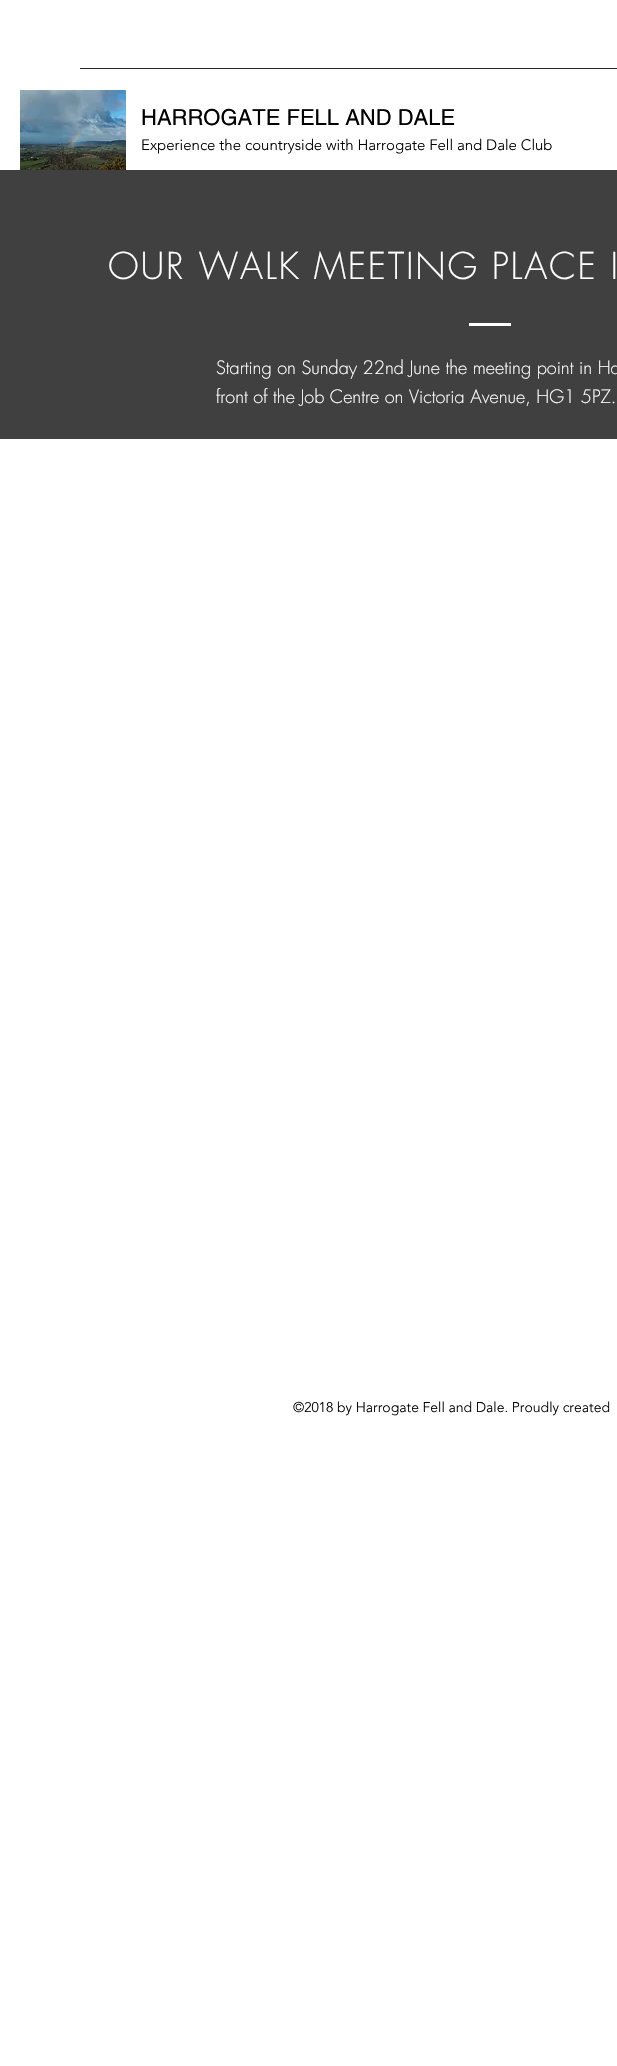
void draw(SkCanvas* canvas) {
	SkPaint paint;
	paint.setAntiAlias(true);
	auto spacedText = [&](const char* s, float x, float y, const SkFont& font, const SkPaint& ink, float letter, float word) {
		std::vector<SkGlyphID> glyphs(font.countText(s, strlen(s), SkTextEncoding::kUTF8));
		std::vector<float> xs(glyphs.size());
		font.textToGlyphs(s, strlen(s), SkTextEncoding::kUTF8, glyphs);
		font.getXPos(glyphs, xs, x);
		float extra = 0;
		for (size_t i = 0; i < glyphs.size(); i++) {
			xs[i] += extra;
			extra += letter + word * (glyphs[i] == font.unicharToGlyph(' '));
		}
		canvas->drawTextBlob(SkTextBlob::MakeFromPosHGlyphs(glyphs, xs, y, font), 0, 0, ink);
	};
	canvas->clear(0xffffffff);
	paint.setColor(0xff262626);
	canvas->drawRect(SkRect::MakeXYWH(80, 68, 537, 1), paint);
	canvas->drawImageRect(SkImages::DeferredFromEncodedData(SkData::MakeFromFileName("img1.png")), SkRect::MakeXYWH(20, 90, 106, 80), SkSamplingOptions());
	SkFont f1(fontMgr->matchFamilyStyle("helvetica", SkFontStyle::Normal()), 22);
	f1.setSubpixel(true);
	paint.setColor(0xff000000);
	canvas->drawString("HARROGATE FELL AND DALE", 141, 125, f1, paint);
	SkFont f2(fontMgr->matchFamilyStyle("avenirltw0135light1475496", SkFontStyle(300, SkFontStyle::kNormal_Width, SkFontStyle::kUpright_Slant)), 15);
	f2.setSubpixel(true);
	canvas->drawString("Experience the countryside with Harrogate Fell and Dale Club", 141, 150, f2, paint);
	paint.setColor(0xff404040);
	canvas->drawRect(SkRect::MakeXYWH(0, 170, 617, 269), paint);
	SkFont f3(fontMgr->matchFamilyStyle("futura", SkFontStyle(300, SkFontStyle::kNormal_Width, SkFontStyle::kUpright_Slant)), 36);
	f3.setSubpixel(true);
	paint.setColor(0xffffffff);
	spacedText("OUR WALK MEETING PLACE I", 108, 279, f3, paint, 1.8, 0);
	canvas->drawRect(SkRect::MakeXYWH(469, 323, 42, 3), paint);
	SkFont f4(fontMgr->matchFamilyStyle("futura", SkFontStyle(300, SkFontStyle::kNormal_Width, SkFontStyle::kUpright_Slant)), 18);
	f4.setSubpixel(true);
	canvas->drawString("Starting on Sunday 22nd June the meeting point in Ha", 216, 374, f4, paint);
	canvas->drawString("front of the Job Centre on Victoria Avenue, HG1 5PZ.", 216, 403, f4, paint);
	SkFont f5(fontMgr->matchFamilyStyle("avenirltw0135light1475496", SkFontStyle(300, SkFontStyle::kNormal_Width, SkFontStyle::kUpright_Slant)), 14);
	f5.setSubpixel(true);
	paint.setColor(0xff000000);
	canvas->drawString("©2018 by Harrogate Fell and Dale. Proudly created", 293, 1412, f5, paint);
}
